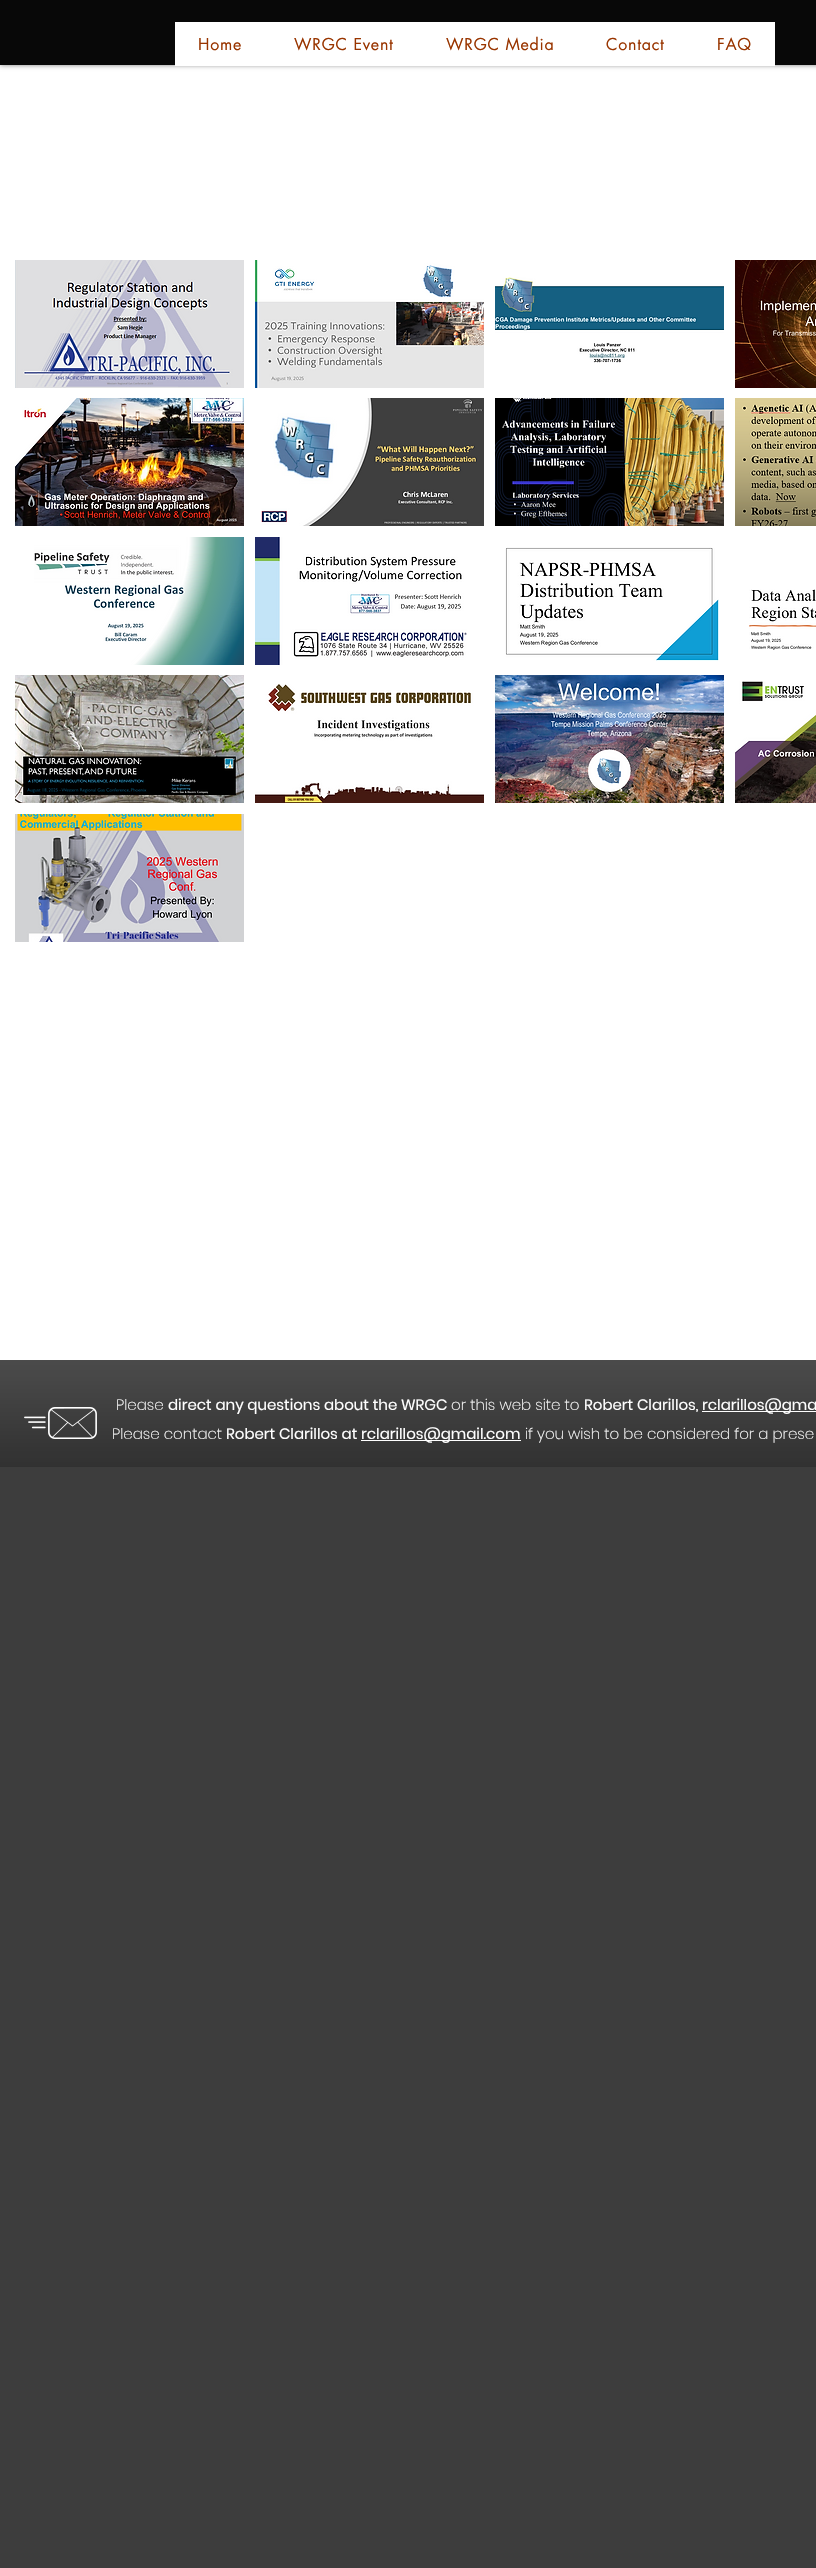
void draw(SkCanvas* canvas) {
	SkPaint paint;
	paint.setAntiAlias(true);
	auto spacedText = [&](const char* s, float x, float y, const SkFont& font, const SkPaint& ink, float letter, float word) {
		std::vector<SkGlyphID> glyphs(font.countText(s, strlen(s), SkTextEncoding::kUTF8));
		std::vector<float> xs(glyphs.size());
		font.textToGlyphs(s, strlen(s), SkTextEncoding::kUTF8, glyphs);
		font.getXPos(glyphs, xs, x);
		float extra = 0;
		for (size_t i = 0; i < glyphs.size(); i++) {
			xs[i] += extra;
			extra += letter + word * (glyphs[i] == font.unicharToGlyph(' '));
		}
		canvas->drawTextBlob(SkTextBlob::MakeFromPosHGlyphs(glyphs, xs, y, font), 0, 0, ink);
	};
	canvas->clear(0xff3d3d3d);
	paint.setColor(0xffffffff);
	canvas->drawRect(SkRect::MakeXYWH(0, 65, 816, 1295), paint);
	paint.setColor(0x80000000);
	paint.setMaskFilter(SkMaskFilter::MakeBlur(kNormal_SkBlurStyle, 2.5));
	canvas->drawRect(SkRect::MakeXYWH(0, 0, 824, 65), paint);
	paint.setMaskFilter(nullptr);
	paint.setColor(0xff080808);
	canvas->drawRect(SkRect::MakeXYWH(0, 0, 816, 65), paint);
	paint.setColor(0xffffffff);
	canvas->drawRect(SkRect::MakeXYWH(175, 22, 600, 44), paint);
	SkFont f1(fontMgr->matchFamilyStyle("futura", SkFontStyle::Normal()), 16);
	f1.setSubpixel(true);
	paint.setColor(0xff993500);
	spacedText("Home", 198, 50, f1, paint, 0.75, 0);
	spacedText("WRGC Event", 294, 50, f1, paint, 0.75, 0);
	spacedText("WRGC Media", 446, 50, f1, paint, 0.75, 0);
	spacedText("Contact", 606, 50, f1, paint, 0.75, 0);
	spacedText("FAQ", 717, 50, f1, paint, 0.75, 0);
	canvas->drawImageRect(SkImages::DeferredFromEncodedData(SkData::MakeFromFileName("img1.png")), SkRect::MakeXYWH(15, 260, 229, 128), SkSamplingOptions());
	canvas->drawImageRect(SkImages::DeferredFromEncodedData(SkData::MakeFromFileName("img2.png")), SkRect::MakeXYWH(255, 260, 229, 128), SkSamplingOptions());
	canvas->drawImageRect(SkImages::DeferredFromEncodedData(SkData::MakeFromFileName("img3.png")), SkRect::MakeXYWH(495, 277, 229, 86), SkSamplingOptions());
	canvas->drawImageRect(SkImages::DeferredFromEncodedData(SkData::MakeFromFileName("img4.png")), SkRect::MakeXYWH(735, 260, 81, 128), SkSamplingOptions());
	canvas->drawImageRect(SkImages::DeferredFromEncodedData(SkData::MakeFromFileName("img5.png")), SkRect::MakeXYWH(15, 398, 229, 128), SkSamplingOptions());
	canvas->drawImageRect(SkImages::DeferredFromEncodedData(SkData::MakeFromFileName("img6.png")), SkRect::MakeXYWH(261, 398, 223, 128), SkSamplingOptions());
	canvas->drawImageRect(SkImages::DeferredFromEncodedData(SkData::MakeFromFileName("img7.png")), SkRect::MakeXYWH(495, 398, 229, 128), SkSamplingOptions());
	canvas->drawImageRect(SkImages::DeferredFromEncodedData(SkData::MakeFromFileName("img8.png")), SkRect::MakeXYWH(735, 398, 81, 128), SkSamplingOptions());
	canvas->drawImageRect(SkImages::DeferredFromEncodedData(SkData::MakeFromFileName("img9.png")), SkRect::MakeXYWH(34, 537, 210, 128), SkSamplingOptions());
	canvas->drawImageRect(SkImages::DeferredFromEncodedData(SkData::MakeFromFileName("img10.png")), SkRect::MakeXYWH(255, 537, 212, 128), SkSamplingOptions());
	canvas->drawImageRect(SkImages::DeferredFromEncodedData(SkData::MakeFromFileName("img11.png")), SkRect::MakeXYWH(505, 547, 214, 114), SkSamplingOptions());
	canvas->drawImageRect(SkImages::DeferredFromEncodedData(SkData::MakeFromFileName("img12.png")), SkRect::MakeXYWH(749, 589, 67, 61), SkSamplingOptions());
	canvas->drawImageRect(SkImages::DeferredFromEncodedData(SkData::MakeFromFileName("img13.png")), SkRect::MakeXYWH(15, 675, 229, 128), SkSamplingOptions());
	canvas->drawImageRect(SkImages::DeferredFromEncodedData(SkData::MakeFromFileName("img14.png")), SkRect::MakeXYWH(255, 684, 229, 119), SkSamplingOptions());
	canvas->drawImageRect(SkImages::DeferredFromEncodedData(SkData::MakeFromFileName("img15.png")), SkRect::MakeXYWH(495, 675, 229, 128), SkSamplingOptions());
	canvas->drawImageRect(SkImages::DeferredFromEncodedData(SkData::MakeFromFileName("img16.png")), SkRect::MakeXYWH(735, 681, 81, 122), SkSamplingOptions());
	canvas->drawImageRect(SkImages::DeferredFromEncodedData(SkData::MakeFromFileName("img17.png")), SkRect::MakeXYWH(15, 814, 229, 128), SkSamplingOptions());
	paint.setColor(0xff0c0c0c);
	canvas->drawRect(SkRect::MakeXYWH(0, 1360, 816, 107), paint);
	canvas->drawImageRect(SkImages::DeferredFromEncodedData(SkData::MakeFromFileName("img18.png")), SkRect::MakeXYWH(0, 1360, 816, 107), SkSamplingOptions());
	canvas->drawImageRect(SkImages::DeferredFromEncodedData(SkData::MakeFromFileName("img19.png")), SkRect::MakeXYWH(24, 1407, 73, 32), SkSamplingOptions());
	SkFont f2(fontMgr->matchFamilyStyle("Poppins", SkFontStyle(200, SkFontStyle::kNormal_Width, SkFontStyle::kUpright_Slant)), 15);
	f2.setSubpixel(true);
	paint.setColor(0xffffffff);
	canvas->drawString("Please", 116, 1410, f2, paint);
	SkFont f3(fontMgr->matchFamilyStyle("Poppins", SkFontStyle::Normal()), 15);
	f3.setSubpixel(true);
	canvas->drawString("direct any questions about the WRGC", 168, 1410, f3, paint);
	canvas->drawString("or this web site to", 451, 1410, f2, paint);
	canvas->drawString("Robert Clarillos,", 584, 1410, f3, paint);
	canvas->drawRect(SkRect::MakeXYWH(702, 1411, 114, 1), paint);
	canvas->drawString("rclarillos@gma", 702, 1410, f3, paint);
	canvas->drawString("Please contact", 112, 1439, f2, paint);
	canvas->drawString("Robert Clarillos at", 226, 1439, f3, paint);
	canvas->drawRect(SkRect::MakeXYWH(361, 1440, 160, 1), paint);
	canvas->drawString("rclarillos@gmail.com", 361, 1439, f3, paint);
	canvas->drawString("if you wish to be considered for a prese", 525, 1439, f2, paint);
}
